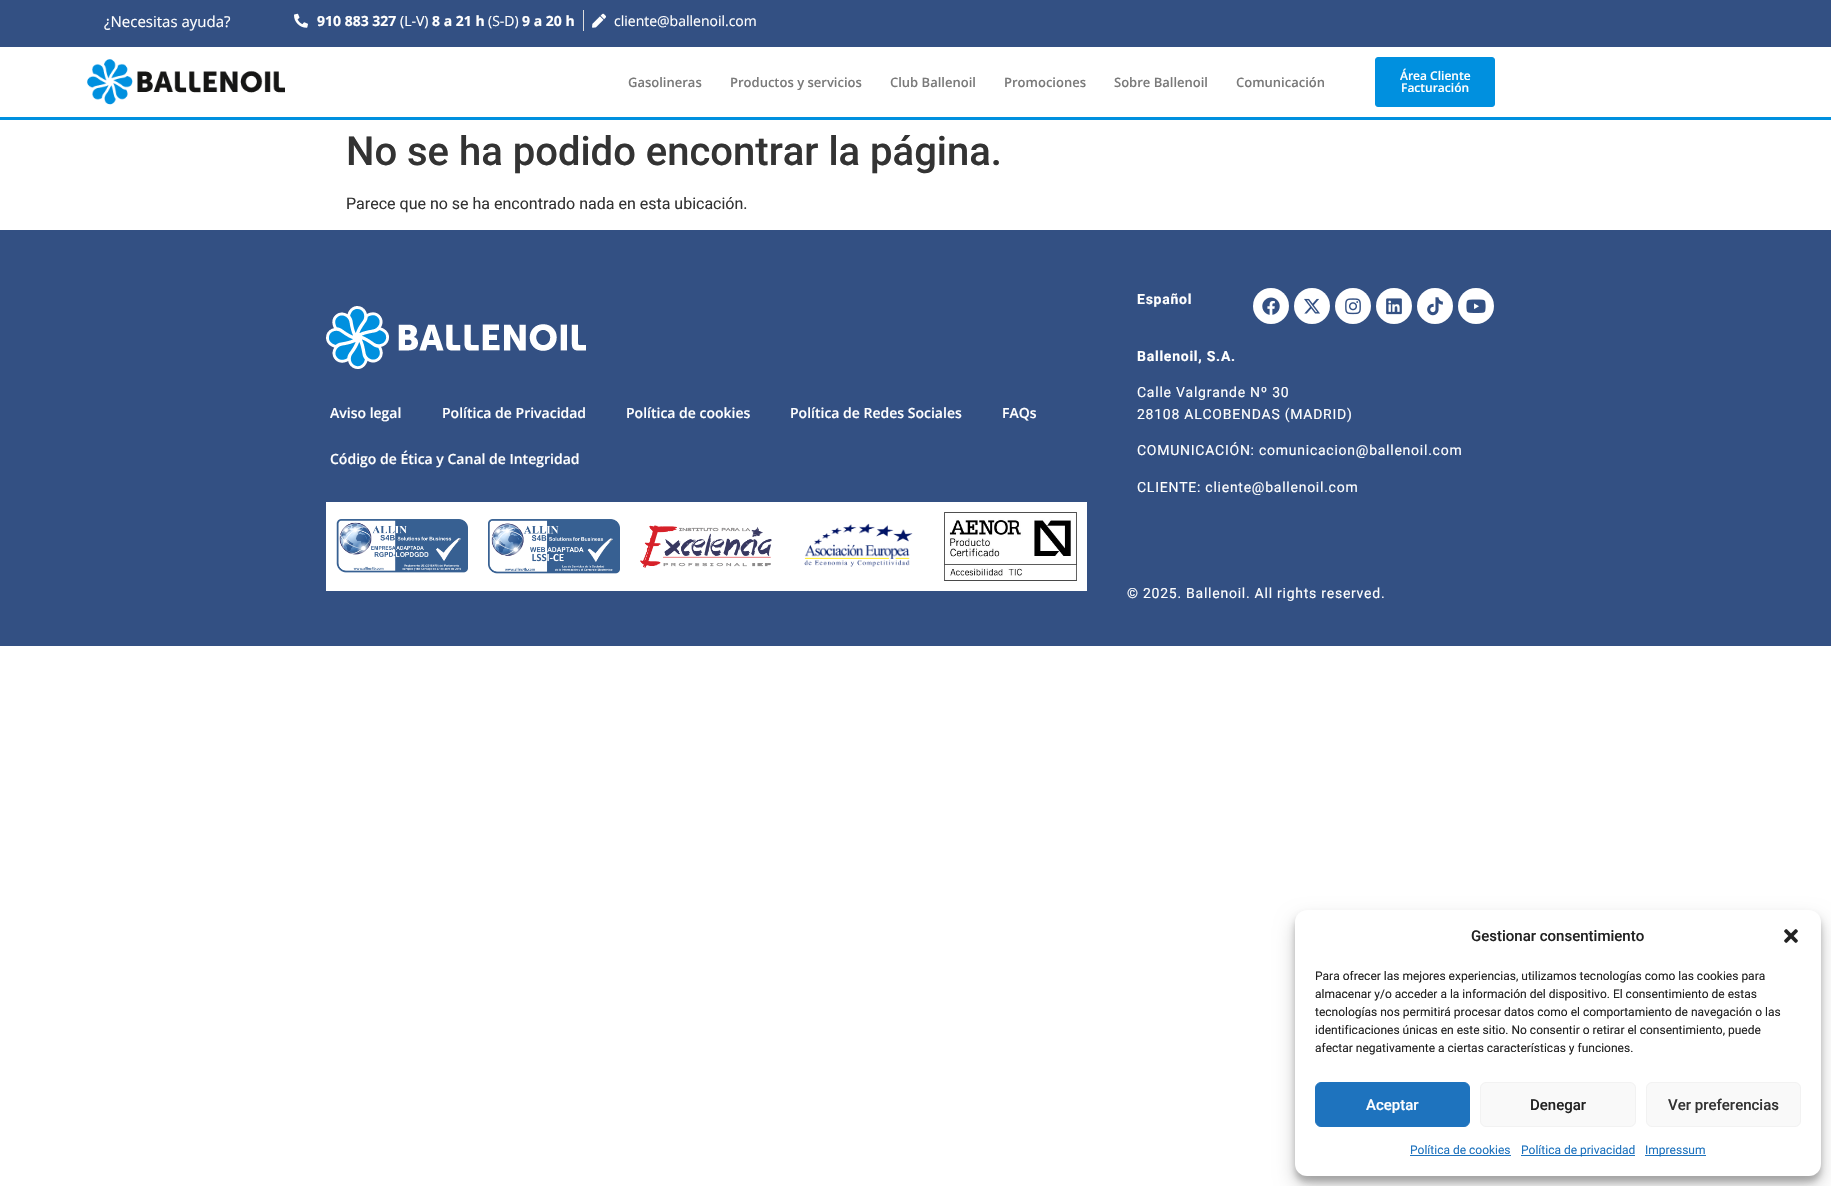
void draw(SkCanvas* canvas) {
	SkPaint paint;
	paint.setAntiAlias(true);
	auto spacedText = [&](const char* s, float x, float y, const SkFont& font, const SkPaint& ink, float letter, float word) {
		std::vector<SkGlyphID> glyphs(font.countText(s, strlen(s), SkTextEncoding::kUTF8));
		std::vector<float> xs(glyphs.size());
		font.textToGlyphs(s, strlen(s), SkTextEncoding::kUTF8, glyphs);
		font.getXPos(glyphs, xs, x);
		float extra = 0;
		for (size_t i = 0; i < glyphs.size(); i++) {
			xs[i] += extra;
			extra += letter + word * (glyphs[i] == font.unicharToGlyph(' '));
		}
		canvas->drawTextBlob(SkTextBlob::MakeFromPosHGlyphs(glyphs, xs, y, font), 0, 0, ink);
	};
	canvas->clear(0xffffffff);
	paint.setColor(0xff335083);
	canvas->drawRect(SkRect::MakeXYWH(0, 0, 1831, 47), paint);
	SkFont f1(fontMgr->matchFamilyStyle("Open Sans", SkFontStyle::Normal()), 15);
	f1.setSubpixel(true);
	paint.setColor(0xffffffff);
	canvas->drawString("¿Necesitas ayuda?", 104, 27, f1, paint);
	canvas->drawImageRect(SkImages::DeferredFromEncodedData(SkData::MakeFromFileName("img1.png")), SkRect::MakeXYWH(294, 13, 14, 15), SkSamplingOptions());
	SkFont f2(fontMgr->matchFamilyStyle("Open Sans", SkFontStyle::Bold()), 14);
	f2.setSubpixel(true);
	canvas->drawString("910 883 327", 317, 26, f2, paint);
	SkFont f3(fontMgr->matchFamilyStyle("Open Sans", SkFontStyle::Normal()), 14);
	f3.setSubpixel(true);
	canvas->drawString("(L-V)", 400, 26, f3, paint);
	canvas->drawString("8 a 21 h", 432, 26, f2, paint);
	canvas->drawString("(S-D)", 488, 26, f3, paint);
	canvas->drawString("9 a 20 h", 522, 26, f2, paint);
	paint.setColor(0xffdddddd);
	canvas->drawRect(SkRect::MakeXYWH(583, 10, 1, 21), paint);
	canvas->drawImageRect(SkImages::DeferredFromEncodedData(SkData::MakeFromFileName("img2.png")), SkRect::MakeXYWH(592, 13, 14, 15), SkSamplingOptions());
	paint.setColor(0xffffffff);
	canvas->drawString("cliente@ballenoil.com", 614, 26, f3, paint);
	paint.setColor(0xff0090df);
	canvas->drawRect(SkRect::MakeXYWH(0, 117, 1831, 3), paint);
	canvas->drawImageRect(SkImages::DeferredFromEncodedData(SkData::MakeFromFileName("img3.png")), SkRect::MakeXYWH(87, 59, 198, 46), SkSamplingOptions());
	SkFont f4(fontMgr->matchFamilyStyle("Open Sans", SkFontStyle(600, SkFontStyle::kNormal_Width, SkFontStyle::kUpright_Slant)), 13);
	f4.setSubpixel(true);
	paint.setColor(0xff7a7a7a);
	canvas->drawString("Gasolineras", 628, 87, f4, paint);
	canvas->drawString("Productos y servicios", 730, 87, f4, paint);
	canvas->drawString("Club Ballenoil", 890, 87, f4, paint);
	canvas->drawString("Promociones", 1004, 87, f4, paint);
	canvas->drawString("Sobre Ballenoil", 1114, 87, f4, paint);
	canvas->drawString("Comunicación", 1236, 87, f4, paint);
	paint.setColor(0xff0090df);
	canvas->drawRoundRect(SkRect::MakeXYWH(1375.5, 57.5, 119, 49), 2.5, 2.5, paint);
	paint.setStroke(true);
	paint.setStrokeWidth(1);
	canvas->drawRoundRect(SkRect::MakeXYWH(1375.5, 57.5, 119, 49), 2.5, 2.5, paint);
	SkFont f5(fontMgr->matchFamilyStyle("Open Sans", SkFontStyle(600, SkFontStyle::kNormal_Width, SkFontStyle::kUpright_Slant)), 12);
	f5.setSubpixel(true);
	paint.setStroke(false);
	paint.setColor(0xffffffff);
	canvas->drawString("Área Cliente", 1400, 80, f5, paint);
	canvas->drawString("Facturación", 1401, 92, f5, paint);
	SkFont f6(fontMgr->matchFamilyStyle("Roboto", SkFontStyle(500, SkFontStyle::kNormal_Width, SkFontStyle::kUpright_Slant)), 40);
	f6.setSubpixel(true);
	paint.setColor(0xff333333);
	canvas->drawString("No se ha podido encontrar la página.", 346, 165, f6, paint);
	SkFont f7(fontMgr->matchFamilyStyle("Roboto", SkFontStyle::Normal()), 16);
	f7.setSubpixel(true);
	canvas->drawString("Parece que no se ha encontrado nada en esta ubicación.", 346, 209, f7, paint);
	paint.setColor(0xff335083);
	canvas->drawRect(SkRect::MakeXYWH(0, 230, 1831, 416), paint);
	canvas->drawImageRect(SkImages::DeferredFromEncodedData(SkData::MakeFromFileName("img4.png")), SkRect::MakeXYWH(326, 306, 260, 63), SkSamplingOptions());
	SkFont f8(fontMgr->matchFamilyStyle("Open Sans", SkFontStyle(600, SkFontStyle::kNormal_Width, SkFontStyle::kUpright_Slant)), 14);
	f8.setSubpixel(true);
	paint.setColor(0xffffffff);
	canvas->drawString("Aviso legal", 330, 418, f8, paint);
	canvas->drawString("Política de Privacidad", 442, 418, f8, paint);
	canvas->drawString("Política de cookies", 626, 418, f8, paint);
	canvas->drawString("Política de Redes Sociales", 790, 418, f8, paint);
	canvas->drawString("FAQs", 1002, 418, f8, paint);
	canvas->drawString("Código de Ética y Canal de Integridad", 330, 464, f8, paint);
	canvas->drawRect(SkRect::MakeXYWH(326, 502, 761, 89), paint);
	canvas->drawImageRect(SkImages::DeferredFromEncodedData(SkData::MakeFromFileName("img5.png")), SkRect::MakeXYWH(336, 519, 132, 54), SkSamplingOptions());
	canvas->drawImageRect(SkImages::DeferredFromEncodedData(SkData::MakeFromFileName("img6.png")), SkRect::MakeXYWH(488, 519, 132, 55), SkSamplingOptions());
	canvas->drawImageRect(SkImages::DeferredFromEncodedData(SkData::MakeFromFileName("img7.png")), SkRect::MakeXYWH(640, 525, 132, 43), SkSamplingOptions());
	canvas->drawImageRect(SkImages::DeferredFromEncodedData(SkData::MakeFromFileName("img8.png")), SkRect::MakeXYWH(804, 523, 109, 44), SkSamplingOptions());
	canvas->drawImageRect(SkImages::DeferredFromEncodedData(SkData::MakeFromFileName("img9.png")), SkRect::MakeXYWH(944, 512, 133, 69), SkSamplingOptions());
	SkFont f9(fontMgr->matchFamilyStyle("Roboto", SkFontStyle::Bold()), 14);
	f9.setSubpixel(true);
	spacedText("Español", 1137, 304, f9, paint, 0.75, 0);
	canvas->drawCircle(1271, 306, 18, paint);
	canvas->drawImageRect(SkImages::DeferredFromEncodedData(SkData::MakeFromFileName("img10.png")), SkRect::MakeXYWH(1262, 297, 18, 18), SkSamplingOptions());
	canvas->drawCircle(1312, 306, 18, paint);
	canvas->drawImageRect(SkImages::DeferredFromEncodedData(SkData::MakeFromFileName("img11.png")), SkRect::MakeXYWH(1304, 298, 16, 16), SkSamplingOptions());
	canvas->drawCircle(1353, 306, 18, paint);
	canvas->drawImageRect(SkImages::DeferredFromEncodedData(SkData::MakeFromFileName("img12.png")), SkRect::MakeXYWH(1345, 298, 16, 17), SkSamplingOptions());
	canvas->drawCircle(1394, 306, 18, paint);
	canvas->drawImageRect(SkImages::DeferredFromEncodedData(SkData::MakeFromFileName("img13.png")), SkRect::MakeXYWH(1386, 298, 16, 17), SkSamplingOptions());
	canvas->drawCircle(1435, 306, 18, paint);
	canvas->drawImageRect(SkImages::DeferredFromEncodedData(SkData::MakeFromFileName("img14.png")), SkRect::MakeXYWH(1427, 297, 16, 19), SkSamplingOptions());
	canvas->drawCircle(1476, 306, 18, paint);
	canvas->drawImageRect(SkImages::DeferredFromEncodedData(SkData::MakeFromFileName("img15.png")), SkRect::MakeXYWH(1466, 299, 20, 14), SkSamplingOptions());
	spacedText("Ballenoil, S.A.", 1137, 361, f9, paint, 0.75, 0);
	SkFont f10(fontMgr->matchFamilyStyle("Roboto", SkFontStyle::Normal()), 14);
	f10.setSubpixel(true);
	spacedText("Calle Valgrande Nº 30", 1137, 397, f10, paint, 0.75, 0);
	spacedText("28108 ALCOBENDAS (MADRID)", 1137, 419, f10, paint, 0.75, 0);
	spacedText("COMUNICACIÓN: comunicacion@ballenoil.com", 1137, 455, f10, paint, 0.75, 0);
	spacedText("CLIENTE: cliente@ballenoil.com", 1137, 492, f10, paint, 0.75, 0);
	spacedText("© 2025. Ballenoil. All rights reserved.", 1127, 598, f10, paint, 0.75, 0);
	paint.setColor(0x3b000000);
	paint.setMaskFilter(SkMaskFilter::MakeBlur(kNormal_SkBlurStyle, 3));
	canvas->drawRoundRect(SkRect::MakeXYWH(1295, 916, 526, 266), 12, 12, paint);
	paint.setMaskFilter(nullptr);
	paint.setColor(0x30000000);
	paint.setMaskFilter(SkMaskFilter::MakeBlur(kNormal_SkBlurStyle, 10));
	canvas->drawRoundRect(SkRect::MakeXYWH(1295, 920, 526, 266), 12, 12, paint);
	paint.setMaskFilter(nullptr);
	paint.setColor(0xffffffff);
	canvas->drawRoundRect(SkRect::MakeXYWH(1295, 910, 526, 266), 12, 12, paint);
	SkFont f11(fontMgr->matchFamilyStyle("Roboto", SkFontStyle(500, SkFontStyle::kNormal_Width, SkFontStyle::kUpright_Slant)), 15);
	f11.setSubpixel(true);
	paint.setColor(0xff222222);
	canvas->drawString("Gestionar consentimiento", 1471, 941, f11, paint);
	canvas->drawImageRect(SkImages::DeferredFromEncodedData(SkData::MakeFromFileName("img16.png")), SkRect::MakeXYWH(1784, 929, 14, 14), SkSamplingOptions());
	SkFont f12(fontMgr->matchFamilyStyle("Roboto", SkFontStyle::Normal()), 12);
	f12.setSubpixel(true);
	canvas->drawString("Para ofrecer las mejores experiencias, utilizamos tecnologías como las cookies para", 1315, 980, f12, paint);
	canvas->drawString("almacenar y/o acceder a la información del dispositivo. El consentimiento de estas", 1315, 998, f12, paint);
	canvas->drawString("tecnologías nos permitirá procesar datos como el comportamiento de navegación o las", 1315, 1016, f12, paint);
	canvas->drawString("identificaciones únicas en este sitio. No consentir o retirar el consentimiento, puede", 1315, 1034, f12, paint);
	canvas->drawString("afectar negativamente a ciertas características y funciones.", 1315, 1052, f12, paint);
	paint.setColor(0xff1e73be);
	canvas->drawRoundRect(SkRect::MakeXYWH(1315.5, 1082.5, 154, 44), 5.5, 5.5, paint);
	paint.setStroke(true);
	canvas->drawRoundRect(SkRect::MakeXYWH(1315.5, 1082.5, 154, 44), 5.5, 5.5, paint);
	paint.setStroke(false);
	paint.setColor(0xffffffff);
	canvas->drawString("Aceptar", 1366, 1110, f11, paint);
	paint.setColor(0xfff9f9f9);
	canvas->drawRoundRect(SkRect::MakeXYWH(1480.5, 1082.5, 155, 44), 5.5, 5.5, paint);
	paint.setStroke(true);
	paint.setColor(0xfff2f2f2);
	canvas->drawRoundRect(SkRect::MakeXYWH(1480.5, 1082.5, 155, 44), 5.5, 5.5, paint);
	paint.setStroke(false);
	paint.setColor(0xff222222);
	canvas->drawString("Denegar", 1530, 1110, f11, paint);
	paint.setColor(0xfff9f9f9);
	canvas->drawRoundRect(SkRect::MakeXYWH(1646.5, 1082.5, 154, 44), 5.5, 5.5, paint);
	paint.setStroke(true);
	paint.setColor(0xfff2f2f2);
	canvas->drawRoundRect(SkRect::MakeXYWH(1646.5, 1082.5, 154, 44), 5.5, 5.5, paint);
	paint.setStroke(false);
	paint.setColor(0xff333333);
	canvas->drawString("Ver preferencias", 1668, 1110, f11, paint);
	paint.setColor(0xff1e73be);
	canvas->drawString("Política de cookies", 1410, 1154, f12, paint);
	canvas->drawRect(SkRect::MakeXYWH(1410, 1155, 101, 1), paint);
	canvas->drawRect(SkRect::MakeXYWH(1521, 1155, 114, 1), paint);
	canvas->drawString("Política de privacidad", 1521, 1154, f12, paint);
	canvas->drawRect(SkRect::MakeXYWH(1645, 1155, 61, 1), paint);
	canvas->drawString("Impressum", 1645, 1154, f12, paint);
}
